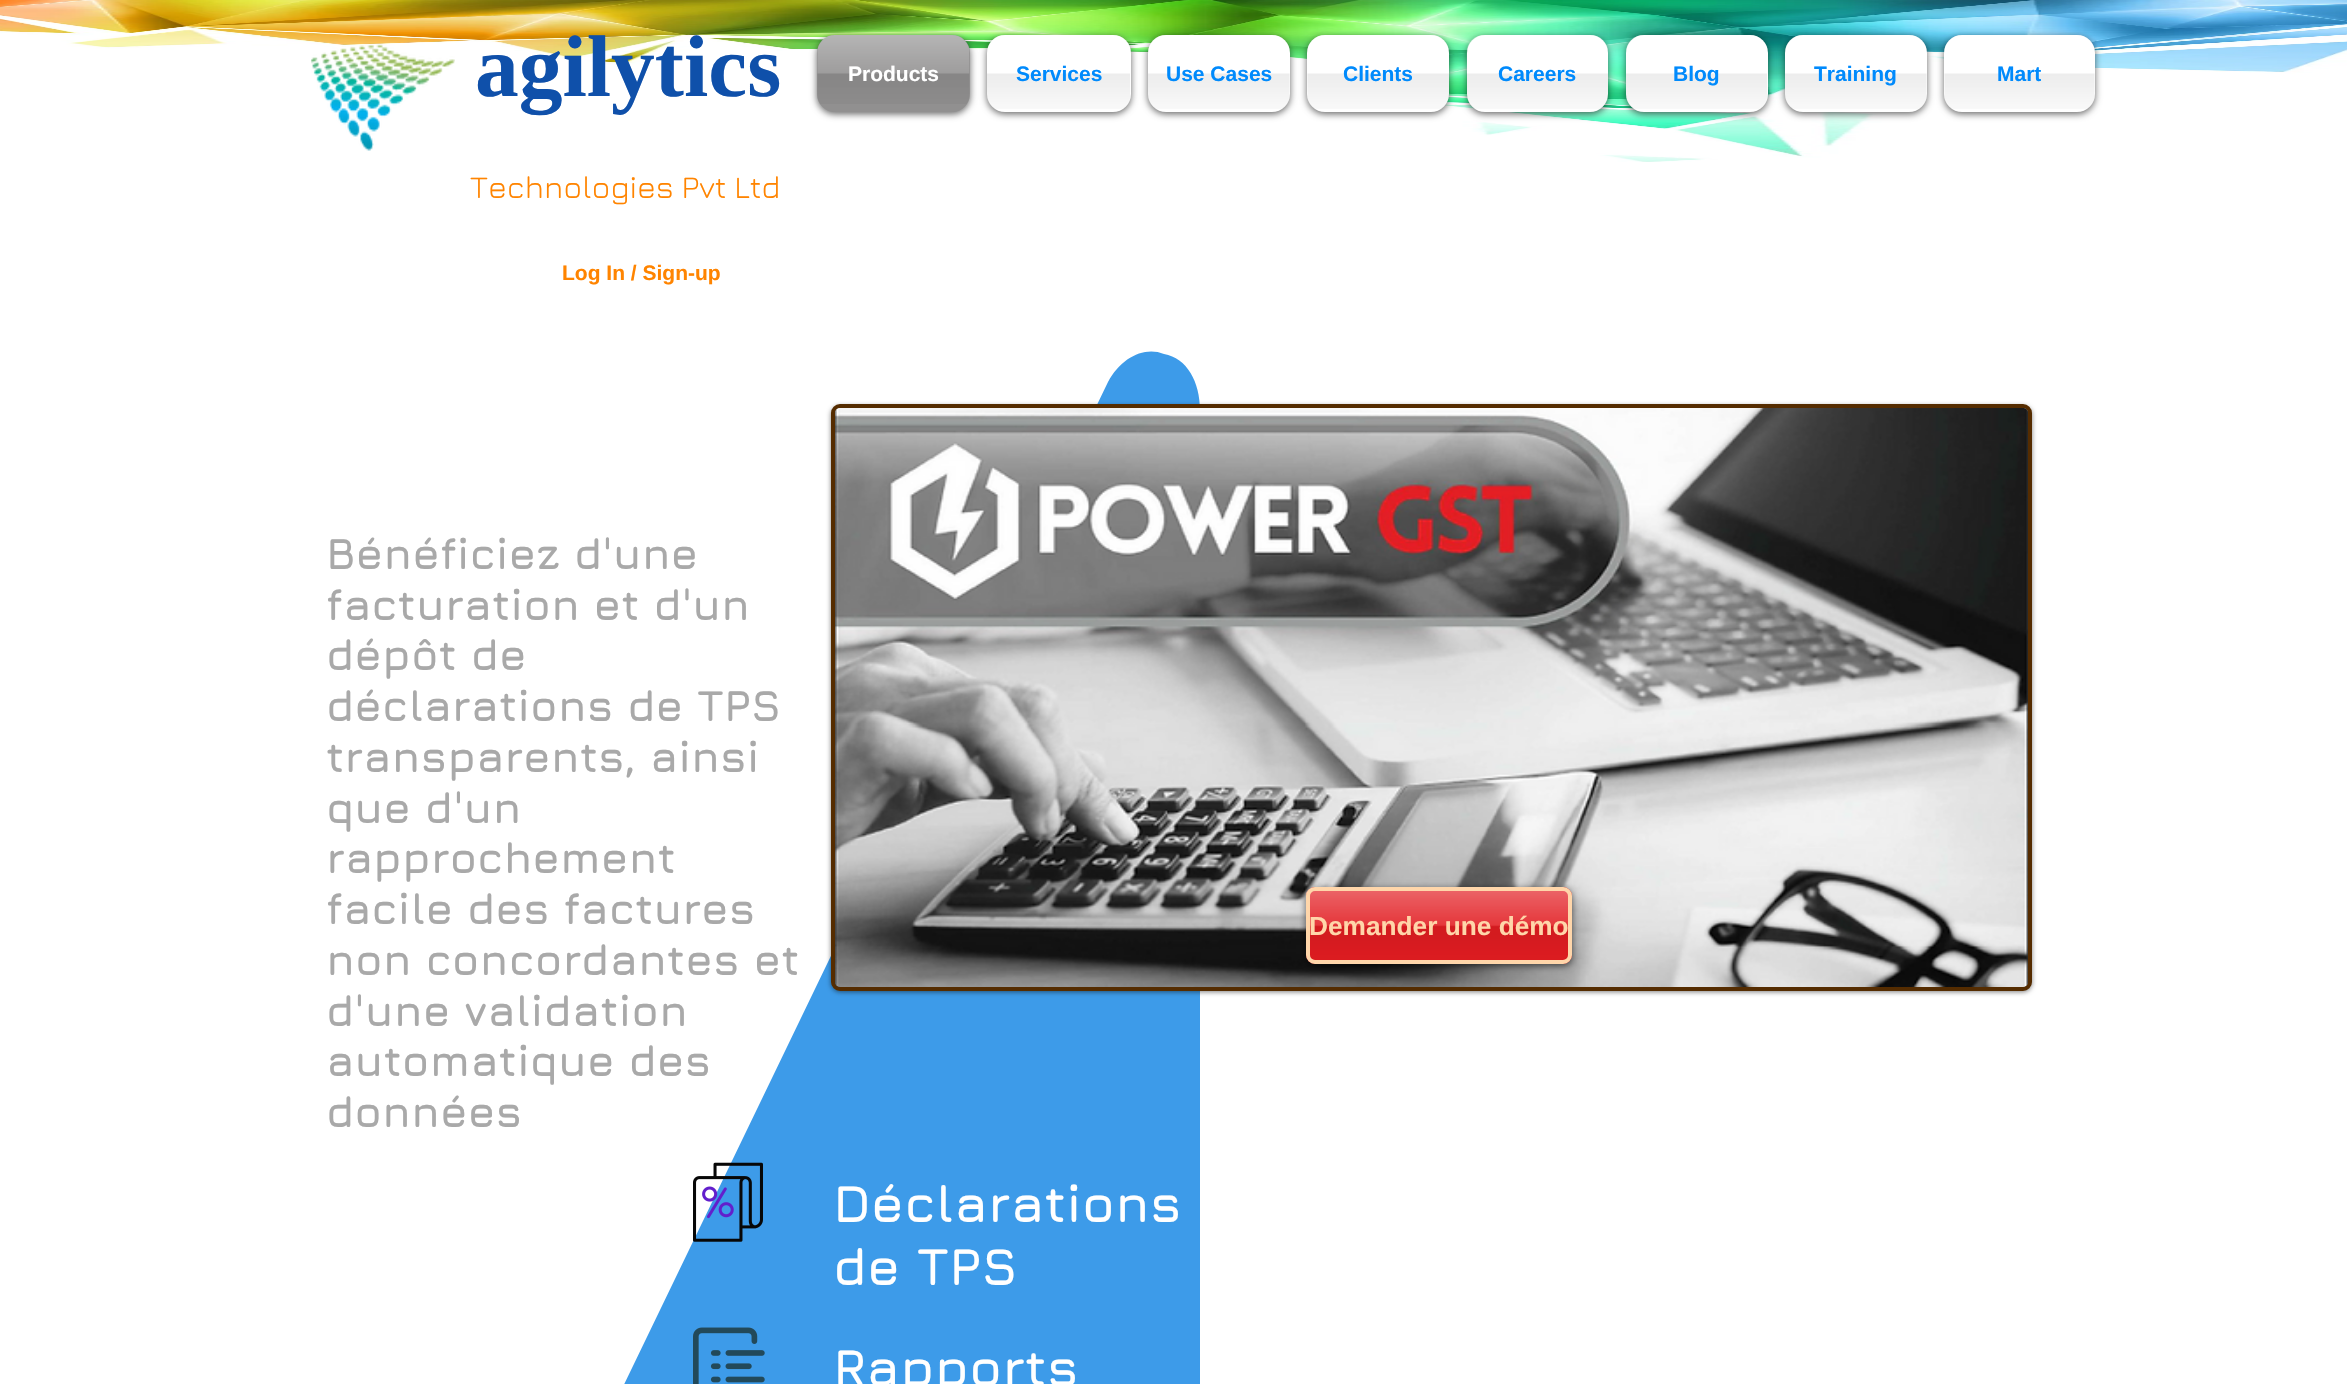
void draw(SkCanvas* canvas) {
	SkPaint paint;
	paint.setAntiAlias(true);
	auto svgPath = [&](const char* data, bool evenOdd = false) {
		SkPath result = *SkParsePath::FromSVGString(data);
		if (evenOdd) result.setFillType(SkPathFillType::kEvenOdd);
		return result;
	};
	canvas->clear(0xffffffff);
	canvas->drawImageRect(SkImages::DeferredFromEncodedData(SkData::MakeFromFileName("img1.png")), SkRect::MakeXYWH(0, 0, 2347, 162), SkSamplingOptions());
	canvas->drawImageRect(SkImages::DeferredFromEncodedData(SkData::MakeFromFileName("img2.png")), SkRect::MakeXYWH(311, 44, 144, 107), SkSamplingOptions());
	SkFont f1(fontMgr->matchFamilyStyle("Liberation Serif", SkFontStyle::Bold()), 87.5);
	f1.setSubpixel(true);
	paint.setColor(0xff0f50aa);
	canvas->drawString("agilytics", 475, 96, f1, paint);
	paint.setColor(0x99000000);
	paint.setMaskFilter(SkMaskFilter::MakeBlur(kNormal_SkBlurStyle, 3.5));
	canvas->drawRoundRect(SkRect::MakeXYWH(817, 37, 153, 77), 18, 18, paint);
	paint.setMaskFilter(nullptr);
	paint.setColor(0xff919090);
	canvas->drawRoundRect(SkRect::MakeXYWH(817, 35, 153, 77), 18, 18, paint);
	canvas->drawImageRect(SkImages::DeferredFromEncodedData(SkData::MakeFromFileName("img3.png")), SkRect::MakeXYWH(817, 35, 153, 69), SkSamplingOptions());
	SkFont f2(fontMgr->matchFamilyStyle("Liberation Sans", SkFontStyle::Bold()), 21);
	f2.setSubpixel(true);
	paint.setColor(0xffffffff);
	canvas->drawString("Products", 848, 81, f2, paint);
	paint.setColor(0x99000000);
	paint.setMaskFilter(SkMaskFilter::MakeBlur(kNormal_SkBlurStyle, 3.5));
	canvas->drawRoundRect(SkRect::MakeXYWH(987, 37, 144, 77), 18, 18, paint);
	paint.setMaskFilter(nullptr);
	paint.setColor(0xffffffff);
	canvas->drawRoundRect(SkRect::MakeXYWH(987, 35, 144, 77), 18, 18, paint);
	canvas->drawImageRect(SkImages::DeferredFromEncodedData(SkData::MakeFromFileName("img4.png")), SkRect::MakeXYWH(987, 35, 143, 74), SkSamplingOptions());
	paint.setColor(0xff008afc);
	canvas->drawString("Services", 1016, 81, f2, paint);
	paint.setColor(0x99000000);
	paint.setMaskFilter(SkMaskFilter::MakeBlur(kNormal_SkBlurStyle, 3.5));
	canvas->drawRoundRect(SkRect::MakeXYWH(1148, 37, 142, 77), 18, 18, paint);
	paint.setMaskFilter(nullptr);
	paint.setColor(0xffffffff);
	canvas->drawRoundRect(SkRect::MakeXYWH(1148, 35, 142, 77), 18, 18, paint);
	canvas->drawImageRect(SkImages::DeferredFromEncodedData(SkData::MakeFromFileName("img5.png")), SkRect::MakeXYWH(1148, 35, 142, 74), SkSamplingOptions());
	paint.setColor(0xff008afc);
	canvas->drawString("Use Cases", 1166, 81, f2, paint);
	paint.setColor(0x99000000);
	paint.setMaskFilter(SkMaskFilter::MakeBlur(kNormal_SkBlurStyle, 3.5));
	canvas->drawRoundRect(SkRect::MakeXYWH(1307, 37, 142, 77), 18, 18, paint);
	paint.setMaskFilter(nullptr);
	paint.setColor(0xffffffff);
	canvas->drawRoundRect(SkRect::MakeXYWH(1307, 35, 142, 77), 18, 18, paint);
	canvas->drawImageRect(SkImages::DeferredFromEncodedData(SkData::MakeFromFileName("img6.png")), SkRect::MakeXYWH(1307, 35, 142, 74), SkSamplingOptions());
	paint.setColor(0xff008afc);
	canvas->drawString("Clients", 1343, 81, f2, paint);
	paint.setColor(0x99000000);
	paint.setMaskFilter(SkMaskFilter::MakeBlur(kNormal_SkBlurStyle, 3.5));
	canvas->drawRoundRect(SkRect::MakeXYWH(1467, 37, 141, 77), 18, 18, paint);
	paint.setMaskFilter(nullptr);
	paint.setColor(0xffffffff);
	canvas->drawRoundRect(SkRect::MakeXYWH(1467, 35, 141, 77), 18, 18, paint);
	canvas->drawImageRect(SkImages::DeferredFromEncodedData(SkData::MakeFromFileName("img7.png")), SkRect::MakeXYWH(1466, 35, 142, 74), SkSamplingOptions());
	paint.setColor(0xff008afc);
	canvas->drawString("Careers", 1498, 81, f2, paint);
	paint.setColor(0x99000000);
	paint.setMaskFilter(SkMaskFilter::MakeBlur(kNormal_SkBlurStyle, 3.5));
	canvas->drawRoundRect(SkRect::MakeXYWH(1626, 37, 142, 77), 18, 18, paint);
	paint.setMaskFilter(nullptr);
	paint.setColor(0xffffffff);
	canvas->drawRoundRect(SkRect::MakeXYWH(1626, 35, 142, 77), 18, 18, paint);
	canvas->drawImageRect(SkImages::DeferredFromEncodedData(SkData::MakeFromFileName("img8.png")), SkRect::MakeXYWH(1626, 35, 141, 74), SkSamplingOptions());
	paint.setColor(0xff008afc);
	canvas->drawString("Blog", 1673, 81, f2, paint);
	paint.setColor(0x99000000);
	paint.setMaskFilter(SkMaskFilter::MakeBlur(kNormal_SkBlurStyle, 3.5));
	canvas->drawRoundRect(SkRect::MakeXYWH(1785, 37, 142, 77), 18, 18, paint);
	paint.setMaskFilter(nullptr);
	paint.setColor(0xffffffff);
	canvas->drawRoundRect(SkRect::MakeXYWH(1785, 35, 142, 77), 18, 18, paint);
	canvas->drawImageRect(SkImages::DeferredFromEncodedData(SkData::MakeFromFileName("img9.png")), SkRect::MakeXYWH(1785, 35, 142, 74), SkSamplingOptions());
	paint.setColor(0xff008afc);
	canvas->drawString("Training", 1814, 81, f2, paint);
	paint.setColor(0x99000000);
	paint.setMaskFilter(SkMaskFilter::MakeBlur(kNormal_SkBlurStyle, 3.5));
	canvas->drawRoundRect(SkRect::MakeXYWH(1944, 37, 151, 77), 18, 18, paint);
	paint.setMaskFilter(nullptr);
	paint.setColor(0xffffffff);
	canvas->drawRoundRect(SkRect::MakeXYWH(1944, 35, 151, 77), 18, 18, paint);
	canvas->drawImageRect(SkImages::DeferredFromEncodedData(SkData::MakeFromFileName("img10.png")), SkRect::MakeXYWH(1944, 35, 151, 74), SkSamplingOptions());
	paint.setColor(0xff008afc);
	canvas->drawString("Mart", 1997, 81, f2, paint);
	SkFont f3(fontMgr->matchFamilyStyle("Jura", SkFontStyle::Normal()), 31.5);
	f3.setSubpixel(true);
	paint.setColor(0xffff8400);
	canvas->drawString("Technologies Pvt Ltd", 470, 198, f3, paint);
	canvas->drawString("Log In / Sign-up", 562, 280, f2, paint);
	SkFont f4(fontMgr->matchFamilyStyle("Jura", SkFontStyle::Bold()), 43.75);
	f4.setSubpixel(true);
	paint.setColor(0xffa9a9a9);
	canvas->drawString("Bénéficiez d'une", 326, 569, f4, paint);
	canvas->drawString("facturation et d'un", 326, 620, f4, paint);
	canvas->drawString("déclarations de TPS", 326, 721, f4, paint);
	canvas->drawString("transparents, ainsi", 326, 772, f4, paint);
	canvas->drawString("rapprochement", 326, 873, f4, paint);
	canvas->drawString("facile des factures", 326, 924, f4, paint);
	canvas->drawString("non concordantes et", 326, 975, f4, paint);
	canvas->drawString("d'une validation", 326, 1026, f4, paint);
	canvas->drawString("automatique des", 326, 1076, f4, paint);
	paint.setColor(0xff3d9be9);
	canvas->drawPath(svgPath("M2024 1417C2014 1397 1998 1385 1981 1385H1200V410C1200 382 1187 358 1164 354C1144 346 1121 358 1108 382L324 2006C314 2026 314 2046 324 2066C334 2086 351 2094 367 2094H1105V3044C1105 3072 1118 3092 1141 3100C1144 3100 1151 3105 1154 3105C1171 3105 1187 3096 1197 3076L2027 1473C2034 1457 2034 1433 2024 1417Z"), paint);
	paint.setColor(0xffa9a9a9);
	canvas->drawString("dépôt de", 326, 670, f4, paint);
	canvas->drawString("que d'un", 326, 823, f4, paint);
	canvas->drawString("données", 326, 1127, f4, paint);
	paint.setColor(0x80000000);
	paint.setMaskFilter(SkMaskFilter::MakeBlur(kNormal_SkBlurStyle, 2.5));
	canvas->drawRoundRect(SkRect::MakeXYWH(831, 406, 1201, 586), 9, 9, paint);
	paint.setMaskFilter(nullptr);
	paint.setStroke(true);
	paint.setStrokeWidth(4);
	paint.setColor(0xff552c00);
	canvas->drawRoundRect(SkRect::MakeXYWH(833, 406, 1197, 583), 7, 7, paint);
	canvas->drawImageRect(SkImages::DeferredFromEncodedData(SkData::MakeFromFileName("img11.png")), SkRect::MakeXYWH(835, 408, 1193, 579), SkSamplingOptions());
	paint.setStroke(false);
	paint.setColor(0x99000000);
	paint.setMaskFilter(SkMaskFilter::MakeBlur(kNormal_SkBlurStyle, 3.5));
	canvas->drawRoundRect(SkRect::MakeXYWH(1306, 889, 266, 77), 9, 9, paint);
	paint.setMaskFilter(nullptr);
	paint.setColor(0xffe21c21);
	canvas->drawRoundRect(SkRect::MakeXYWH(1306, 887, 266, 77), 9, 9, paint);
	canvas->drawImageRect(SkImages::DeferredFromEncodedData(SkData::MakeFromFileName("img12.png")), SkRect::MakeXYWH(1305, 887, 267, 75), SkSamplingOptions());
	paint.setStroke(true);
	paint.setColor(0xffffd6aa);
	canvas->drawRoundRect(SkRect::MakeXYWH(1308, 889, 262, 73), 7, 7, paint);
	SkFont f5(fontMgr->matchFamilyStyle("Liberation Sans", SkFontStyle::Bold()), 26.25);
	f5.setSubpixel(true);
	paint.setStroke(false);
	canvas->drawString("Demander une démo", 1309, 935, f5, paint);
	canvas->drawImageRect(SkImages::DeferredFromEncodedData(SkData::MakeFromFileName("img13.png")), SkRect::MakeXYWH(693, 1162, 70, 80), SkSamplingOptions());
	SkFont f6(fontMgr->matchFamilyStyle("Jura", SkFontStyle::Bold()), 52.5);
	f6.setSubpixel(true);
	paint.setColor(0xffffffff);
	canvas->drawString("Déclarations", 833, 1222, f6, paint);
	canvas->drawString("de TPS", 833, 1285, f6, paint);
	canvas->drawImageRect(SkImages::DeferredFromEncodedData(SkData::MakeFromFileName("img14.png")), SkRect::MakeXYWH(693, 1327, 72, 57), SkSamplingOptions());
	canvas->drawString("Rapports", 833, 1386, f6, paint);
}
